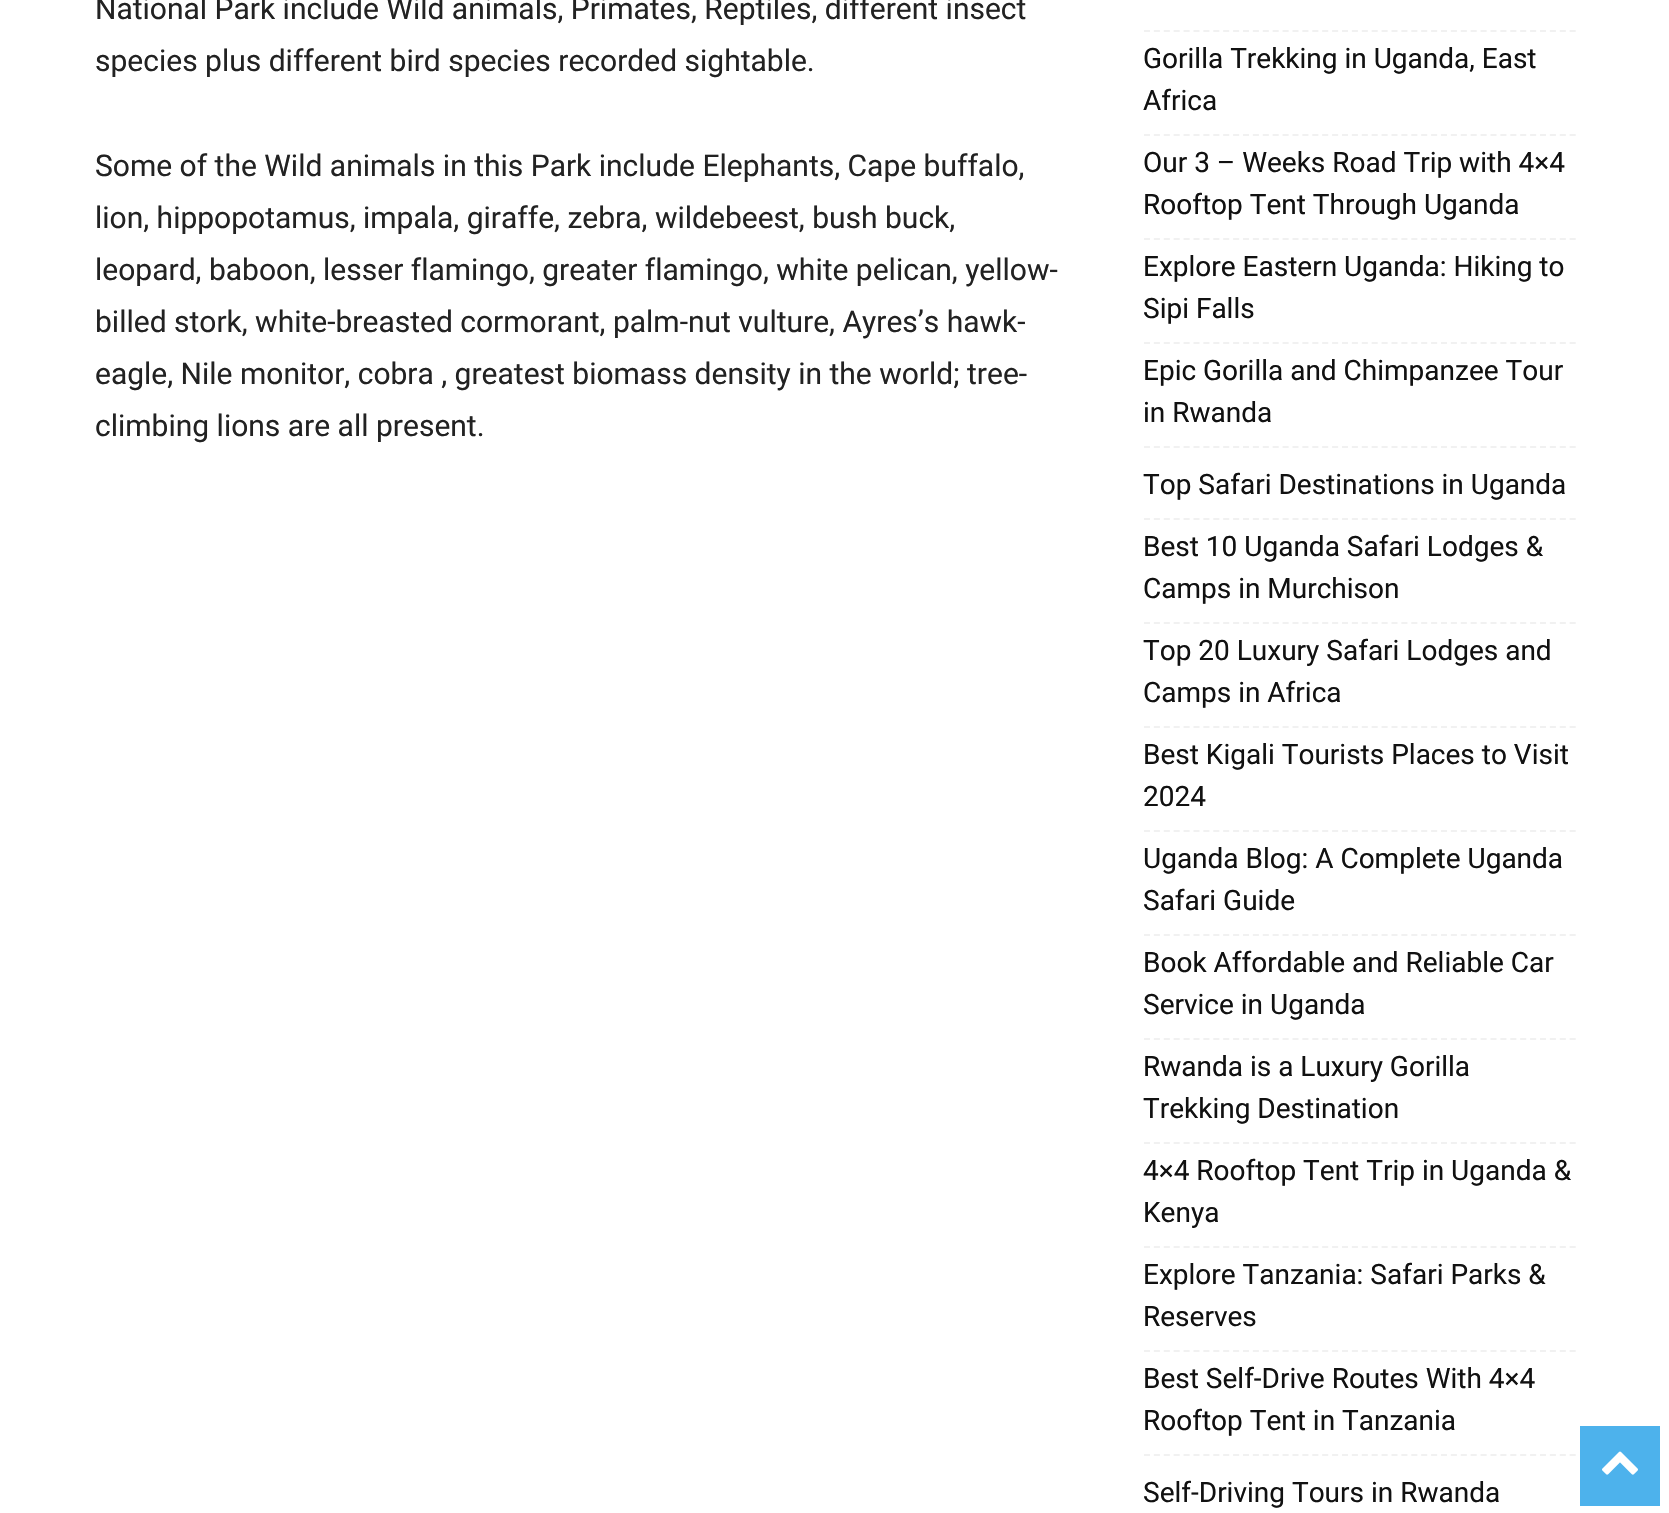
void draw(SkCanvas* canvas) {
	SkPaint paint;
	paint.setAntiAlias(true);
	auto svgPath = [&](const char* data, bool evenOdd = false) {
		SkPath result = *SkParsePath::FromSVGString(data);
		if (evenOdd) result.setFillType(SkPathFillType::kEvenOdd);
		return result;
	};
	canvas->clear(0xffffffff);
	SkFont f1(fontMgr->matchFamilyStyle("Roboto", SkFontStyle::Normal()), 30);
	f1.setSubpixel(true);
	paint.setColor(0xff222222);
	canvas->drawString("National Park include Wild animals, Primates, Reptiles, different insect", 95, 19, f1, paint);
	canvas->drawString("species plus different bird species recorded sightable.", 95, 71, f1, paint);
	canvas->drawString("Some of the Wild animals in this Park include Elephants, Cape buffalo,", 95, 176, f1, paint);
	canvas->drawString("lion, hippopotamus, impala, giraffe, zebra, wildebeest, bush buck,", 95, 228, f1, paint);
	canvas->drawString("leopard, baboon, lesser flamingo, greater flamingo, white pelican, yellow-", 95, 280, f1, paint);
	canvas->drawString("billed stork, white-breasted cormorant, palm-nut vulture, Ayres’s hawk-", 95, 332, f1, paint);
	canvas->drawString("eagle, Nile monitor, cobra , greatest biomass density in the world; tree-", 95, 384, f1, paint);
	canvas->drawString("climbing lions are all present.", 95, 436, f1, paint);
	paint.setStroke(true);
	paint.setStrokeWidth(2);
	paint.setColor(0xfff1f1f1);
	paint.setPathEffect(SkDashPathEffect::Make({{6, 3.9f}}, 0));
	canvas->drawPath(svgPath("M1144 31H1576"), paint);
	paint.setPathEffect(nullptr);
	paint.setPathEffect(SkDashPathEffect::Make({{6, 3.9f}}, 0));
	canvas->drawPath(svgPath("M1144 135H1576"), paint);
	paint.setPathEffect(nullptr);
	SkFont f2(fontMgr->matchFamilyStyle("Roboto", SkFontStyle::Normal()), 28);
	f2.setSubpixel(true);
	paint.setStroke(false);
	paint.setColor(0xff111111);
	canvas->drawString("Gorilla Trekking in Uganda, East", 1143, 68, f2, paint);
	canvas->drawString("Africa", 1143, 110, f2, paint);
	paint.setStroke(true);
	paint.setColor(0xfff1f1f1);
	paint.setPathEffect(SkDashPathEffect::Make({{6, 3.9f}}, 0));
	canvas->drawPath(svgPath("M1144 239H1576"), paint);
	paint.setPathEffect(nullptr);
	paint.setStroke(false);
	paint.setColor(0xff111111);
	canvas->drawString("Our 3 – Weeks Road Trip with 4×4", 1143, 172, f2, paint);
	canvas->drawString("Rooftop Tent Through Uganda", 1143, 214, f2, paint);
	paint.setStroke(true);
	paint.setColor(0xfff1f1f1);
	paint.setPathEffect(SkDashPathEffect::Make({{6, 3.9f}}, 0));
	canvas->drawPath(svgPath("M1144 343H1576"), paint);
	paint.setPathEffect(nullptr);
	paint.setStroke(false);
	paint.setColor(0xff111111);
	canvas->drawString("Explore Eastern Uganda: Hiking to", 1143, 276, f2, paint);
	canvas->drawString("Sipi Falls", 1143, 318, f2, paint);
	paint.setStroke(true);
	paint.setColor(0xfff1f1f1);
	paint.setPathEffect(SkDashPathEffect::Make({{6, 3.9f}}, 0));
	canvas->drawPath(svgPath("M1144 447H1576"), paint);
	paint.setPathEffect(nullptr);
	paint.setStroke(false);
	paint.setColor(0xff111111);
	canvas->drawString("Epic Gorilla and Chimpanzee Tour", 1143, 380, f2, paint);
	canvas->drawString("in Rwanda", 1143, 422, f2, paint);
	paint.setStroke(true);
	paint.setColor(0xfff1f1f1);
	paint.setPathEffect(SkDashPathEffect::Make({{6, 3.9f}}, 0));
	canvas->drawPath(svgPath("M1144 519H1576"), paint);
	paint.setPathEffect(nullptr);
	paint.setStroke(false);
	paint.setColor(0xff111111);
	canvas->drawString("Top Safari Destinations in Uganda", 1143, 494, f2, paint);
	paint.setStroke(true);
	paint.setColor(0xfff1f1f1);
	paint.setPathEffect(SkDashPathEffect::Make({{6, 3.9f}}, 0));
	canvas->drawPath(svgPath("M1144 623H1576"), paint);
	paint.setPathEffect(nullptr);
	paint.setStroke(false);
	paint.setColor(0xff111111);
	canvas->drawString("Best 10 Uganda Safari Lodges &", 1143, 556, f2, paint);
	canvas->drawString("Camps in Murchison", 1143, 598, f2, paint);
	paint.setStroke(true);
	paint.setColor(0xfff1f1f1);
	paint.setPathEffect(SkDashPathEffect::Make({{6, 3.9f}}, 0));
	canvas->drawPath(svgPath("M1144 727H1576"), paint);
	paint.setPathEffect(nullptr);
	paint.setStroke(false);
	paint.setColor(0xff111111);
	canvas->drawString("Top 20 Luxury Safari Lodges and", 1143, 660, f2, paint);
	canvas->drawString("Camps in Africa", 1143, 702, f2, paint);
	paint.setStroke(true);
	paint.setColor(0xfff1f1f1);
	paint.setPathEffect(SkDashPathEffect::Make({{6, 3.9f}}, 0));
	canvas->drawPath(svgPath("M1144 831H1576"), paint);
	paint.setPathEffect(nullptr);
	paint.setStroke(false);
	paint.setColor(0xff111111);
	canvas->drawString("Best Kigali Tourists Places to Visit", 1143, 764, f2, paint);
	canvas->drawString("2024", 1143, 806, f2, paint);
	paint.setStroke(true);
	paint.setColor(0xfff1f1f1);
	paint.setPathEffect(SkDashPathEffect::Make({{6, 3.9f}}, 0));
	canvas->drawPath(svgPath("M1144 935H1576"), paint);
	paint.setPathEffect(nullptr);
	paint.setStroke(false);
	paint.setColor(0xff111111);
	canvas->drawString("Uganda Blog: A Complete Uganda", 1143, 868, f2, paint);
	canvas->drawString("Safari Guide", 1143, 910, f2, paint);
	paint.setStroke(true);
	paint.setColor(0xfff1f1f1);
	paint.setPathEffect(SkDashPathEffect::Make({{6, 3.9f}}, 0));
	canvas->drawPath(svgPath("M1144 1039H1576"), paint);
	paint.setPathEffect(nullptr);
	paint.setStroke(false);
	paint.setColor(0xff111111);
	canvas->drawString("Book Affordable and Reliable Car", 1143, 972, f2, paint);
	canvas->drawString("Service in Uganda", 1143, 1014, f2, paint);
	paint.setStroke(true);
	paint.setColor(0xfff1f1f1);
	paint.setPathEffect(SkDashPathEffect::Make({{6, 3.9f}}, 0));
	canvas->drawPath(svgPath("M1144 1143H1576"), paint);
	paint.setPathEffect(nullptr);
	paint.setStroke(false);
	paint.setColor(0xff111111);
	canvas->drawString("Rwanda is a Luxury Gorilla", 1143, 1076, f2, paint);
	canvas->drawString("Trekking Destination", 1143, 1118, f2, paint);
	paint.setStroke(true);
	paint.setColor(0xfff1f1f1);
	paint.setPathEffect(SkDashPathEffect::Make({{6, 3.9f}}, 0));
	canvas->drawPath(svgPath("M1144 1247H1576"), paint);
	paint.setPathEffect(nullptr);
	paint.setStroke(false);
	paint.setColor(0xff111111);
	canvas->drawString("4×4 Rooftop Tent Trip in Uganda &", 1143, 1180, f2, paint);
	canvas->drawString("Kenya", 1143, 1222, f2, paint);
	paint.setStroke(true);
	paint.setColor(0xfff1f1f1);
	paint.setPathEffect(SkDashPathEffect::Make({{6, 3.9f}}, 0));
	canvas->drawPath(svgPath("M1144 1351H1576"), paint);
	paint.setPathEffect(nullptr);
	paint.setStroke(false);
	paint.setColor(0xff111111);
	canvas->drawString("Explore Tanzania: Safari Parks &", 1143, 1284, f2, paint);
	canvas->drawString("Reserves", 1143, 1326, f2, paint);
	paint.setStroke(true);
	paint.setColor(0xfff1f1f1);
	paint.setPathEffect(SkDashPathEffect::Make({{6, 3.9f}}, 0));
	canvas->drawPath(svgPath("M1144 1455H1576"), paint);
	paint.setPathEffect(nullptr);
	paint.setStroke(false);
	paint.setColor(0xff111111);
	canvas->drawString("Best Self-Drive Routes With 4×4", 1143, 1388, f2, paint);
	canvas->drawString("Rooftop Tent in Tanzania", 1143, 1430, f2, paint);
	canvas->drawString("Self-Driving Tours in Rwanda", 1143, 1502, f2, paint);
	paint.setColor(0xff4db2ec);
	canvas->drawRect(SkRect::MakeXYWH(1580, 1426, 80, 80), paint);
	canvas->drawImageRect(SkImages::DeferredFromEncodedData(SkData::MakeFromFileName("img1.png")), SkRect::MakeXYWH(1602, 1451, 36, 24), SkSamplingOptions());
}
